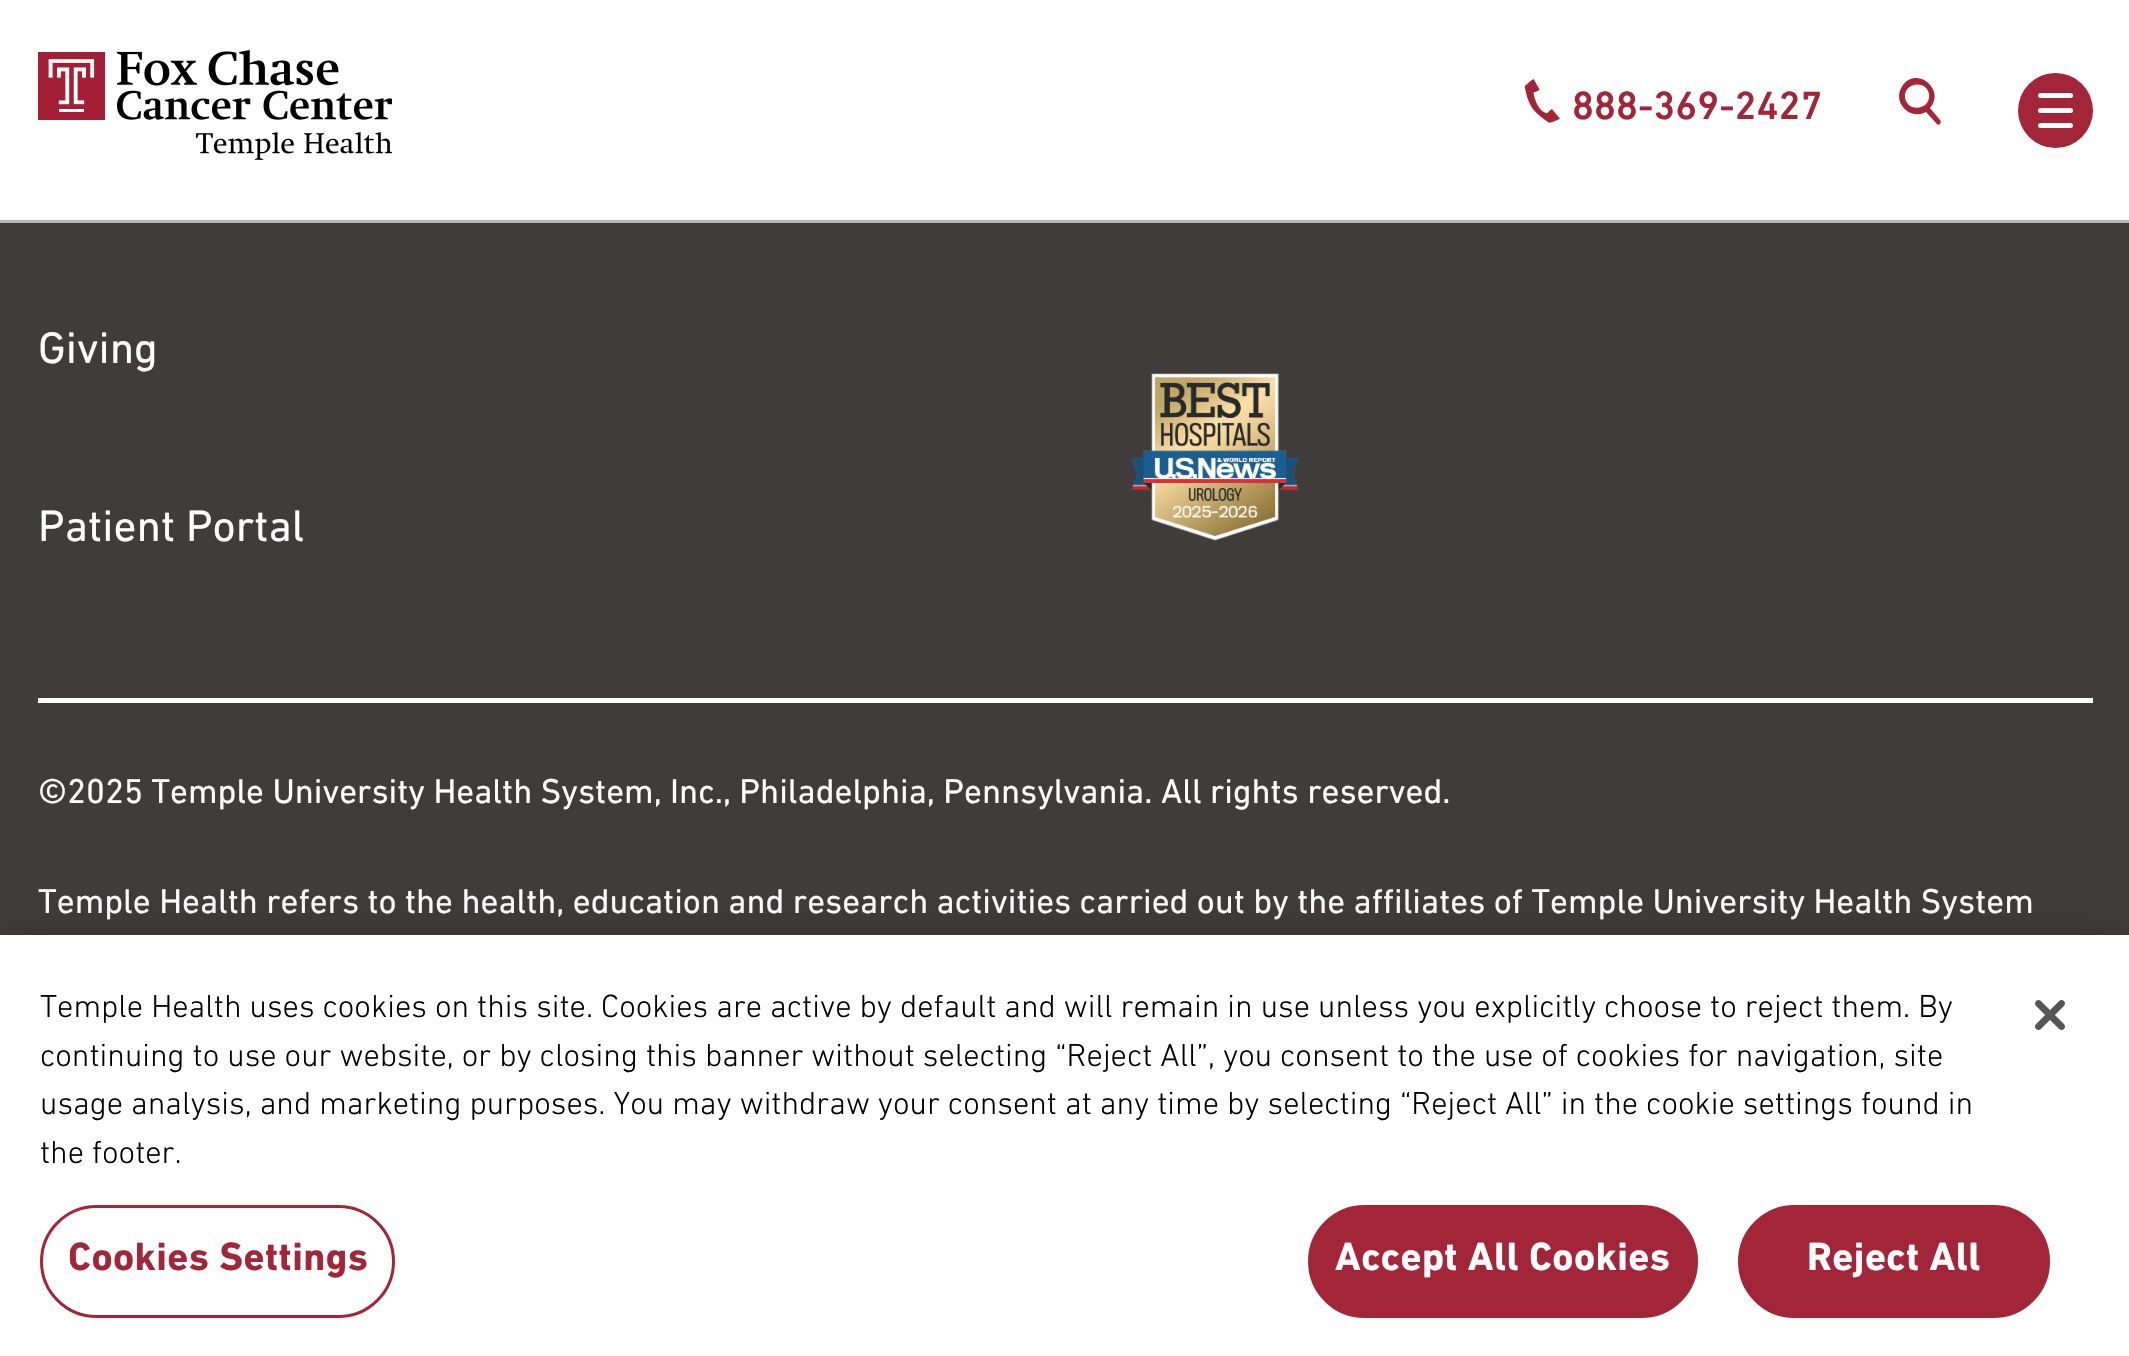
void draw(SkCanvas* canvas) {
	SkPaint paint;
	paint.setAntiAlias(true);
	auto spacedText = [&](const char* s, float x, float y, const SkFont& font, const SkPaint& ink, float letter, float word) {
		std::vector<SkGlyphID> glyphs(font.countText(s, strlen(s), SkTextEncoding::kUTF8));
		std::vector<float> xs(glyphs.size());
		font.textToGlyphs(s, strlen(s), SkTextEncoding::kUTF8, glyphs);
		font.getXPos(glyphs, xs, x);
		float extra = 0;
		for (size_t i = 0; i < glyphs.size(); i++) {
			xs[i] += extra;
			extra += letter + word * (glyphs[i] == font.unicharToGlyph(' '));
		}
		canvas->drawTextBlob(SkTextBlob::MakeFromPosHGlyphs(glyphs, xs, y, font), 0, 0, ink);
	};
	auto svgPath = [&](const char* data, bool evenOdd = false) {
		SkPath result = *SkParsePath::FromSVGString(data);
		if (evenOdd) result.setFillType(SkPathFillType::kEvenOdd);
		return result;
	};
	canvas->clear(0xff403c3c);
	paint.setColor(0xffffffff);
	canvas->drawRect(SkRect::MakeXYWH(0, 0, 2129, 220), paint);
	paint.setColor(0xffb7b7b7);
	canvas->drawRect(SkRect::MakeXYWH(0, 220, 2129, 3), paint);
	canvas->drawImageRect(SkImages::DeferredFromEncodedData(SkData::MakeFromFileName("img1.png")), SkRect::MakeXYWH(38, 50, 354, 110), SkSamplingOptions());
	canvas->drawImageRect(SkImages::DeferredFromEncodedData(SkData::MakeFromFileName("img2.png")), SkRect::MakeXYWH(1524, 79, 36, 44), SkSamplingOptions());
	SkFont f1(fontMgr->matchFamilyStyle("DIN Next", SkFontStyle(500, SkFontStyle::kNormal_Width, SkFontStyle::kUpright_Slant)), 40);
	f1.setSubpixel(true);
	paint.setColor(0xffa32638);
	canvas->drawString("888-369-2427", 1572, 119, f1, paint);
	canvas->drawPath(svgPath("M1905 98C1908 113 1931 110 1929 94C1926 79 1903 83 1905 98M1903 85C1917 66 1946 90 1930 108L1940 120C1941 121 1941 123 1940 124C1939 125 1937 125 1936 123L1926 112C1909 121 1891 101 1903 85", true), paint);
	canvas->drawCircle(2055.5, 110.5, 37.5, paint);
	paint.setColor(0xffffffff);
	canvas->drawRoundRect(SkRect::MakeXYWH(2038, 93, 35, 5), 2.5, 2.5, paint);
	canvas->drawRoundRect(SkRect::MakeXYWH(2038, 108, 35, 5), 2.5, 2.5, paint);
	canvas->drawRoundRect(SkRect::MakeXYWH(2038, 123, 35, 5), 2.5, 2.5, paint);
	SkFont f2(fontMgr->matchFamilyStyle("DIN Next", SkFontStyle::Normal()), 45);
	f2.setSubpixel(true);
	canvas->drawString("Giving", 38, 363, f2, paint);
	canvas->drawString("Patient Portal", 38, 541, f2, paint);
	canvas->drawImageRect(SkImages::DeferredFromEncodedData(SkData::MakeFromFileName("img3.png")), SkRect::MakeXYWH(1131, 373, 168, 168), SkSamplingOptions());
	canvas->drawRect(SkRect::MakeXYWH(38, 698, 2055, 5), paint);
	SkFont f3(fontMgr->matchFamilyStyle("DIN Next", SkFontStyle::Normal()), 35);
	f3.setSubpixel(true);
	canvas->drawString("©2025 Temple University Health System, Inc., Philadelphia, Pennsylvania. All rights reserved.", 38, 803, f3, paint);
	canvas->drawString("Temple Health refers to the health, education and research activities carried out by the affiliates of Temple University Health System", 38, 913, f3, paint);
	paint.setColor(0x33000000);
	paint.setMaskFilter(SkMaskFilter::MakeBlur(kNormal_SkBlurStyle, 22.5));
	canvas->drawRect(SkRect::MakeXYWH(0, 935, 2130, 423), paint);
	paint.setMaskFilter(nullptr);
	paint.setColor(0xffffffff);
	canvas->drawRect(SkRect::MakeXYWH(0, 935, 2129, 421), paint);
	SkFont f4(fontMgr->matchFamilyStyle("DIN Next", SkFontStyle(300, SkFontStyle::kNormal_Width, SkFontStyle::kUpright_Slant)), 32.52);
	f4.setSubpixel(true);
	paint.setColor(0xff000000);
	canvas->drawString("Temple Health uses cookies on this site. Cookies are active by default and will remain in use unless you explicitly choose to reject them. By", 40, 1017, f4, paint);
	canvas->drawString("continuing to use our website, or by closing this banner without selecting “Reject All”, you consent to the use of cookies for navigation, site", 40, 1066, f4, paint);
	canvas->drawString("usage analysis, and marketing purposes. You may withdraw your consent at any time by selecting “Reject All” in the cookie settings found in", 40, 1114, f4, paint);
	canvas->drawString("the footer.", 40, 1163, f4, paint);
	paint.setStroke(true);
	paint.setStrokeWidth(3);
	paint.setColor(0xffa32638);
	canvas->drawRoundRect(SkRect::MakeXYWH(41.5, 1206.5, 352, 110), 55, 55, paint);
	SkFont f5(fontMgr->matchFamilyStyle("DIN Next", SkFontStyle::Bold()), 40);
	f5.setSubpixel(true);
	paint.setStroke(false);
	spacedText("Cookies Settings", 68, 1270, f5, paint, 0.4, 0);
	canvas->drawRoundRect(SkRect::MakeXYWH(1309.5, 1206.5, 387, 110), 55, 55, paint);
	paint.setStroke(true);
	canvas->drawRoundRect(SkRect::MakeXYWH(1309.5, 1206.5, 387, 110), 55, 55, paint);
	paint.setStroke(false);
	paint.setColor(0xffffffff);
	spacedText("Accept All Cookies", 1335, 1270, f5, paint, 0.4, 0);
	paint.setColor(0xffa32638);
	canvas->drawRoundRect(SkRect::MakeXYWH(1739.5, 1206.5, 309, 110), 55, 55, paint);
	paint.setStroke(true);
	canvas->drawRoundRect(SkRect::MakeXYWH(1739.5, 1206.5, 309, 110), 55, 55, paint);
	paint.setStroke(false);
	paint.setColor(0xffffffff);
	spacedText("Reject All", 1807, 1270, f5, paint, 0.4, 0);
	canvas->drawImageRect(SkImages::DeferredFromEncodedData(SkData::MakeFromFileName("img4.png")), SkRect::MakeXYWH(2035, 1000, 30, 30), SkSamplingOptions());
}
